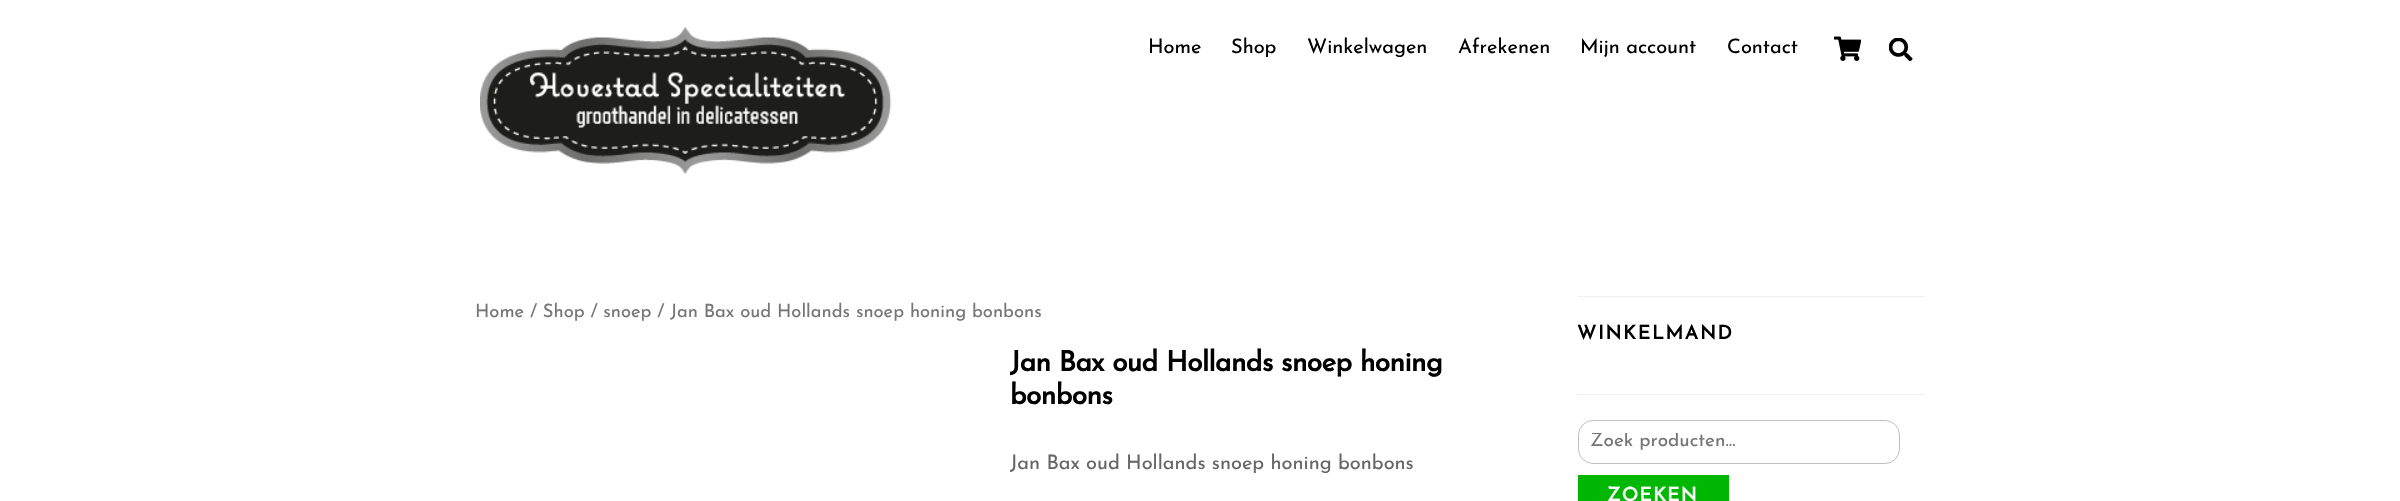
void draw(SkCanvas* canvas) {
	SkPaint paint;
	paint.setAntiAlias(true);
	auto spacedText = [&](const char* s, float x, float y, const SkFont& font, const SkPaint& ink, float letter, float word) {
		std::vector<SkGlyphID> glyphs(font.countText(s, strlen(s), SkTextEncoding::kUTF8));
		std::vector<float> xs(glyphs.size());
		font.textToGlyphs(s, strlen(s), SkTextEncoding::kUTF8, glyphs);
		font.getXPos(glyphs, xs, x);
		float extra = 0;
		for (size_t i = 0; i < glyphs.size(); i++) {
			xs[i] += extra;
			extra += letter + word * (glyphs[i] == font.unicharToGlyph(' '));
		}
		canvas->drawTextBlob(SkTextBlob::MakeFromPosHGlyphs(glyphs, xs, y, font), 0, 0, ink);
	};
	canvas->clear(0xffffffff);
	canvas->drawImageRect(SkImages::DeferredFromEncodedData(SkData::MakeFromFileName("img1.png")), SkRect::MakeXYWH(480, 26, 412, 148), SkSamplingOptions());
	SkFont f1(fontMgr->matchFamilyStyle("Josefin Sans", SkFontStyle(100, SkFontStyle::kNormal_Width, SkFontStyle::kUpright_Slant)), 20);
	f1.setSubpixel(true);
	paint.setColor(0xff000000);
	canvas->drawString("Home", 1148, 53, f1, paint);
	canvas->drawString("Shop", 1231, 53, f1, paint);
	canvas->drawString("Winkelwagen", 1307, 53, f1, paint);
	canvas->drawString("Afrekenen", 1458, 53, f1, paint);
	canvas->drawString("Mijn account", 1580, 53, f1, paint);
	canvas->drawString("Contact", 1727, 53, f1, paint);
	canvas->drawImageRect(SkImages::DeferredFromEncodedData(SkData::MakeFromFileName("img2.png")), SkRect::MakeXYWH(1834, 36, 27, 25), SkSamplingOptions());
	canvas->drawImageRect(SkImages::DeferredFromEncodedData(SkData::MakeFromFileName("img3.png")), SkRect::MakeXYWH(1889, 38, 24, 23), SkSamplingOptions());
	SkFont f2(fontMgr->matchFamilyStyle("Josefin Sans", SkFontStyle(100, SkFontStyle::kNormal_Width, SkFontStyle::kUpright_Slant)), 18.4);
	f2.setSubpixel(true);
	paint.setColor(0xff767676);
	canvas->drawString("Home / Shop / snoep / Jan Bax oud Hollands snoep honing bonbons", 475, 317, f2, paint);
	SkFont f3(fontMgr->matchFamilyStyle("Josefin Sans", SkFontStyle::Bold()), 28);
	f3.setSubpixel(true);
	paint.setColor(0xff000000);
	spacedText("Jan Bax oud Hollands snoep honing", 1010, 371, f3, paint, -0.55, 0);
	spacedText("bonbons", 1010, 404, f3, paint, -0.55, 0);
	paint.setColor(0xff666666);
	canvas->drawString("Jan Bax oud Hollands snoep honing bonbons", 1010, 469, f1, paint);
	paint.setColor(0xffeeeeee);
	canvas->drawRect(SkRect::MakeXYWH(1578, 296, 347, 1), paint);
	SkFont f4(fontMgr->matchFamilyStyle("Josefin Sans", SkFontStyle::Bold()), 19);
	f4.setSubpixel(true);
	paint.setColor(0xff000000);
	spacedText("WINKELMAND", 1577, 339, f4, paint, 1.75, 0);
	paint.setColor(0xffeeeeee);
	canvas->drawRect(SkRect::MakeXYWH(1578, 394, 347, 1), paint);
	paint.setStroke(true);
	paint.setStrokeWidth(1);
	paint.setColor(0xffbfbfbf);
	canvas->drawRoundRect(SkRect::MakeXYWH(1578.5, 420.5, 321, 43), 14.5, 14.5, paint);
	canvas->save();
	canvas->clipRect(SkRect::MakeXYWH(1590, 433, 280, 18));
	SkFont f5(fontMgr->matchFamilyStyle("Josefin Sans", SkFontStyle(100, SkFontStyle::kNormal_Width, SkFontStyle::kUpright_Slant)), 19);
	f5.setSubpixel(true);
	paint.setStroke(false);
	paint.setColor(0xff767676);
	canvas->drawString("Zoek producten…", 1590, 446, f5, paint);
	canvas->restore();
	paint.setColor(0xff00b703);
	canvas->drawRect(SkRect::MakeXYWH(1578, 475, 151, 26), paint);
	paint.setColor(0xffffffff);
	spacedText("ZOEKEN", 1607, 501, f4, paint, 1.25, 0);
}
